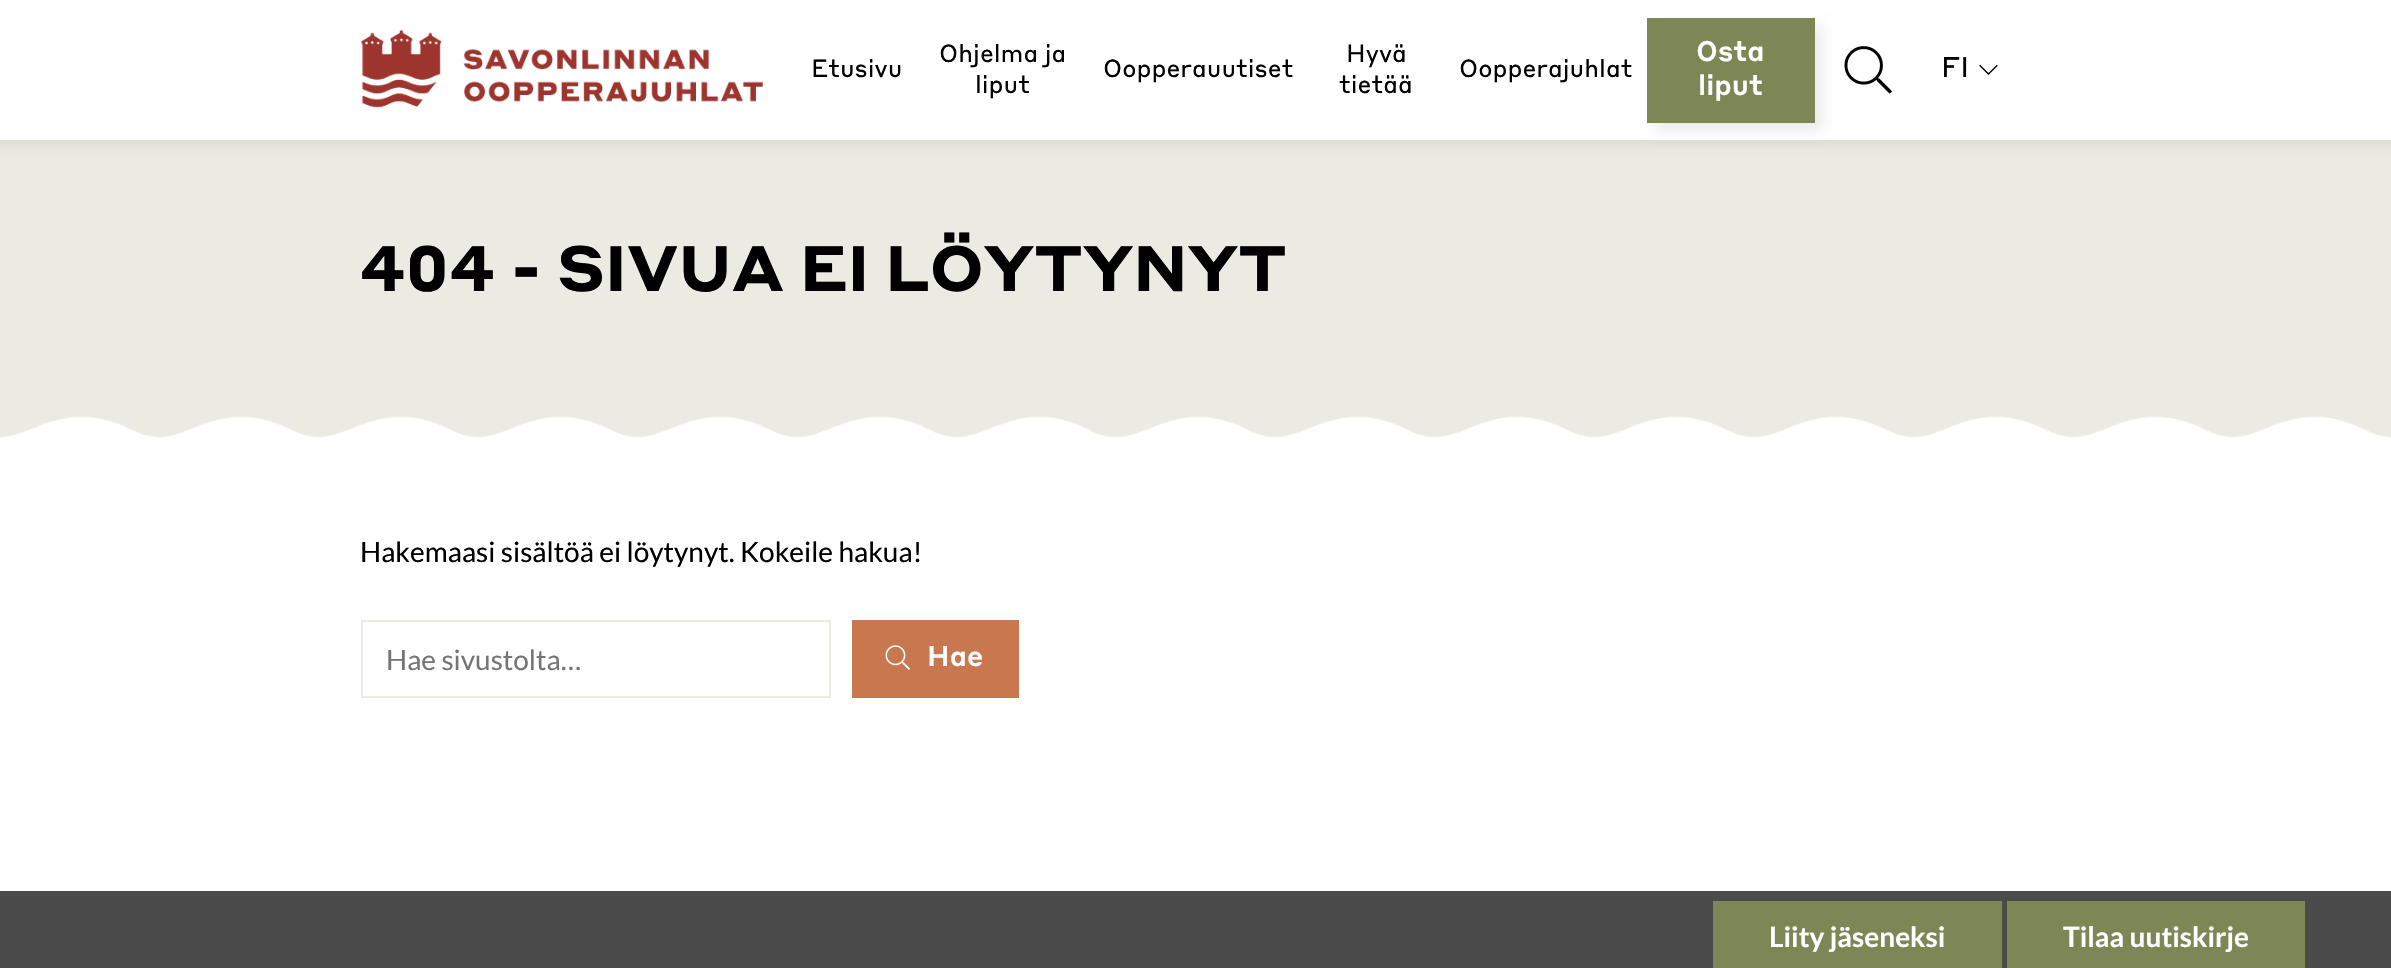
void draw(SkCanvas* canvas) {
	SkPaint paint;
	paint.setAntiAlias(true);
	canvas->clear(0xff4b4b4b);
	paint.setColor(0xffecebe3);
	canvas->drawRect(SkRect::MakeXYWH(0, 140, 2391, 273), paint);
	paint.setColor(0x0d000000);
	paint.setMaskFilter(SkMaskFilter::MakeBlur(kNormal_SkBlurStyle, 3.5));
	canvas->drawRect(SkRect::MakeXYWH(-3, 0, 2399, 147), paint);
	paint.setMaskFilter(nullptr);
	paint.setColor(0xffffffff);
	canvas->drawRect(SkRect::MakeXYWH(0, 0, 2391, 140), paint);
	canvas->drawImageRect(SkImages::DeferredFromEncodedData(SkData::MakeFromFileName("img1.png")), SkRect::MakeXYWH(360, 29, 403, 79), SkSamplingOptions());
	SkFont f1(fontMgr->matchFamilyStyle("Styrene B", SkFontStyle::Normal()), 24.5);
	f1.setSubpixel(true);
	paint.setColor(0xff000000);
	canvas->drawString("Etusivu", 811, 77, f1, paint);
	canvas->drawString("Ohjelma ja", 939, 62, f1, paint);
	canvas->drawString("liput", 975, 93, f1, paint);
	canvas->drawString("Oopperauutiset", 1103, 77, f1, paint);
	canvas->drawString("Hyvä", 1346, 62, f1, paint);
	canvas->drawString("tietää", 1339, 93, f1, paint);
	canvas->drawString("Oopperajuhlat", 1459, 77, f1, paint);
	paint.setColor(0x14000000);
	paint.setMaskFilter(SkMaskFilter::MakeBlur(kNormal_SkBlurStyle, 6));
	canvas->drawRect(SkRect::MakeXYWH(1654, 25, 168, 105), paint);
	paint.setMaskFilter(nullptr);
	paint.setColor(0xff7d8655);
	canvas->drawRect(SkRect::MakeXYWH(1647, 18, 168, 105), paint);
	SkFont f2(fontMgr->matchFamilyStyle("Styrene B", SkFontStyle(500, SkFontStyle::kNormal_Width, SkFontStyle::kUpright_Slant)), 28);
	f2.setSubpixel(true);
	paint.setColor(0xffffffff);
	canvas->drawString("Osta", 1696, 61, f2, paint);
	canvas->drawString("liput", 1698, 95, f2, paint);
	canvas->drawImageRect(SkImages::DeferredFromEncodedData(SkData::MakeFromFileName("img2.png")), SkRect::MakeXYWH(1844, 46, 48, 48), SkSamplingOptions());
	SkFont f3(fontMgr->matchFamilyStyle("Styrene B", SkFontStyle::Normal()), 28);
	f3.setSubpixel(true);
	paint.setColor(0xff000000);
	canvas->drawString("FI", 1941, 77, f3, paint);
	canvas->drawImageRect(SkImages::DeferredFromEncodedData(SkData::MakeFromFileName("img3.png")), SkRect::MakeXYWH(1979, 64, 19, 11), SkSamplingOptions());
	paint.setColor(0xffffffff);
	canvas->drawRect(SkRect::MakeXYWH(0, 416, 2391, 475), paint);
	SkFont f4(fontMgr->matchFamilyStyle("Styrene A", SkFontStyle::Bold()), 63);
	f4.setSubpixel(true);
	paint.setColor(0xff000000);
	canvas->drawString("404 - SIVUA EI LÖYTYNYT", 360, 291, f4, paint);
	canvas->drawImageRect(SkImages::DeferredFromEncodedData(SkData::MakeFromFileName("img4.png")), SkRect::MakeXYWH(0, 413, 2391, 25), SkSamplingOptions());
	SkFont f5(fontMgr->matchFamilyStyle("Lato", SkFontStyle::Normal()), 28);
	f5.setSubpixel(true);
	canvas->drawString("Hakemaasi sisältöä ei löytynyt. Kokeile hakua!", 360, 562, f5, paint);
	paint.setStroke(true);
	paint.setStrokeWidth(2);
	paint.setColor(0xffecebe3);
	canvas->drawRect(SkRect::MakeXYWH(362, 621, 468, 76), paint);
	paint.setStroke(false);
	paint.setColor(0xff757575);
	canvas->drawString("Hae sivustolta…", 386, 670, f5, paint);
	paint.setColor(0xffc9774f);
	canvas->drawRect(SkRect::MakeXYWH(852, 620, 167, 78), paint);
	canvas->drawImageRect(SkImages::DeferredFromEncodedData(SkData::MakeFromFileName("img5.png")), SkRect::MakeXYWH(885, 645, 25, 25), SkSamplingOptions());
	paint.setColor(0xffffffff);
	canvas->drawString("Hae", 927, 666, f2, paint);
	paint.setColor(0xff7d8655);
	canvas->drawRect(SkRect::MakeXYWH(1713, 901, 289, 67), paint);
	SkFont f6(fontMgr->matchFamilyStyle("Lato", SkFontStyle::Bold()), 28);
	f6.setSubpixel(true);
	paint.setColor(0xffffffff);
	canvas->drawString("Liity jäseneksi", 1769, 947, f6, paint);
	paint.setColor(0xff7d8655);
	canvas->drawRect(SkRect::MakeXYWH(2007, 901, 298, 67), paint);
	paint.setColor(0xffffffff);
	canvas->drawString("Tilaa uutiskirje", 2063, 947, f6, paint);
}
